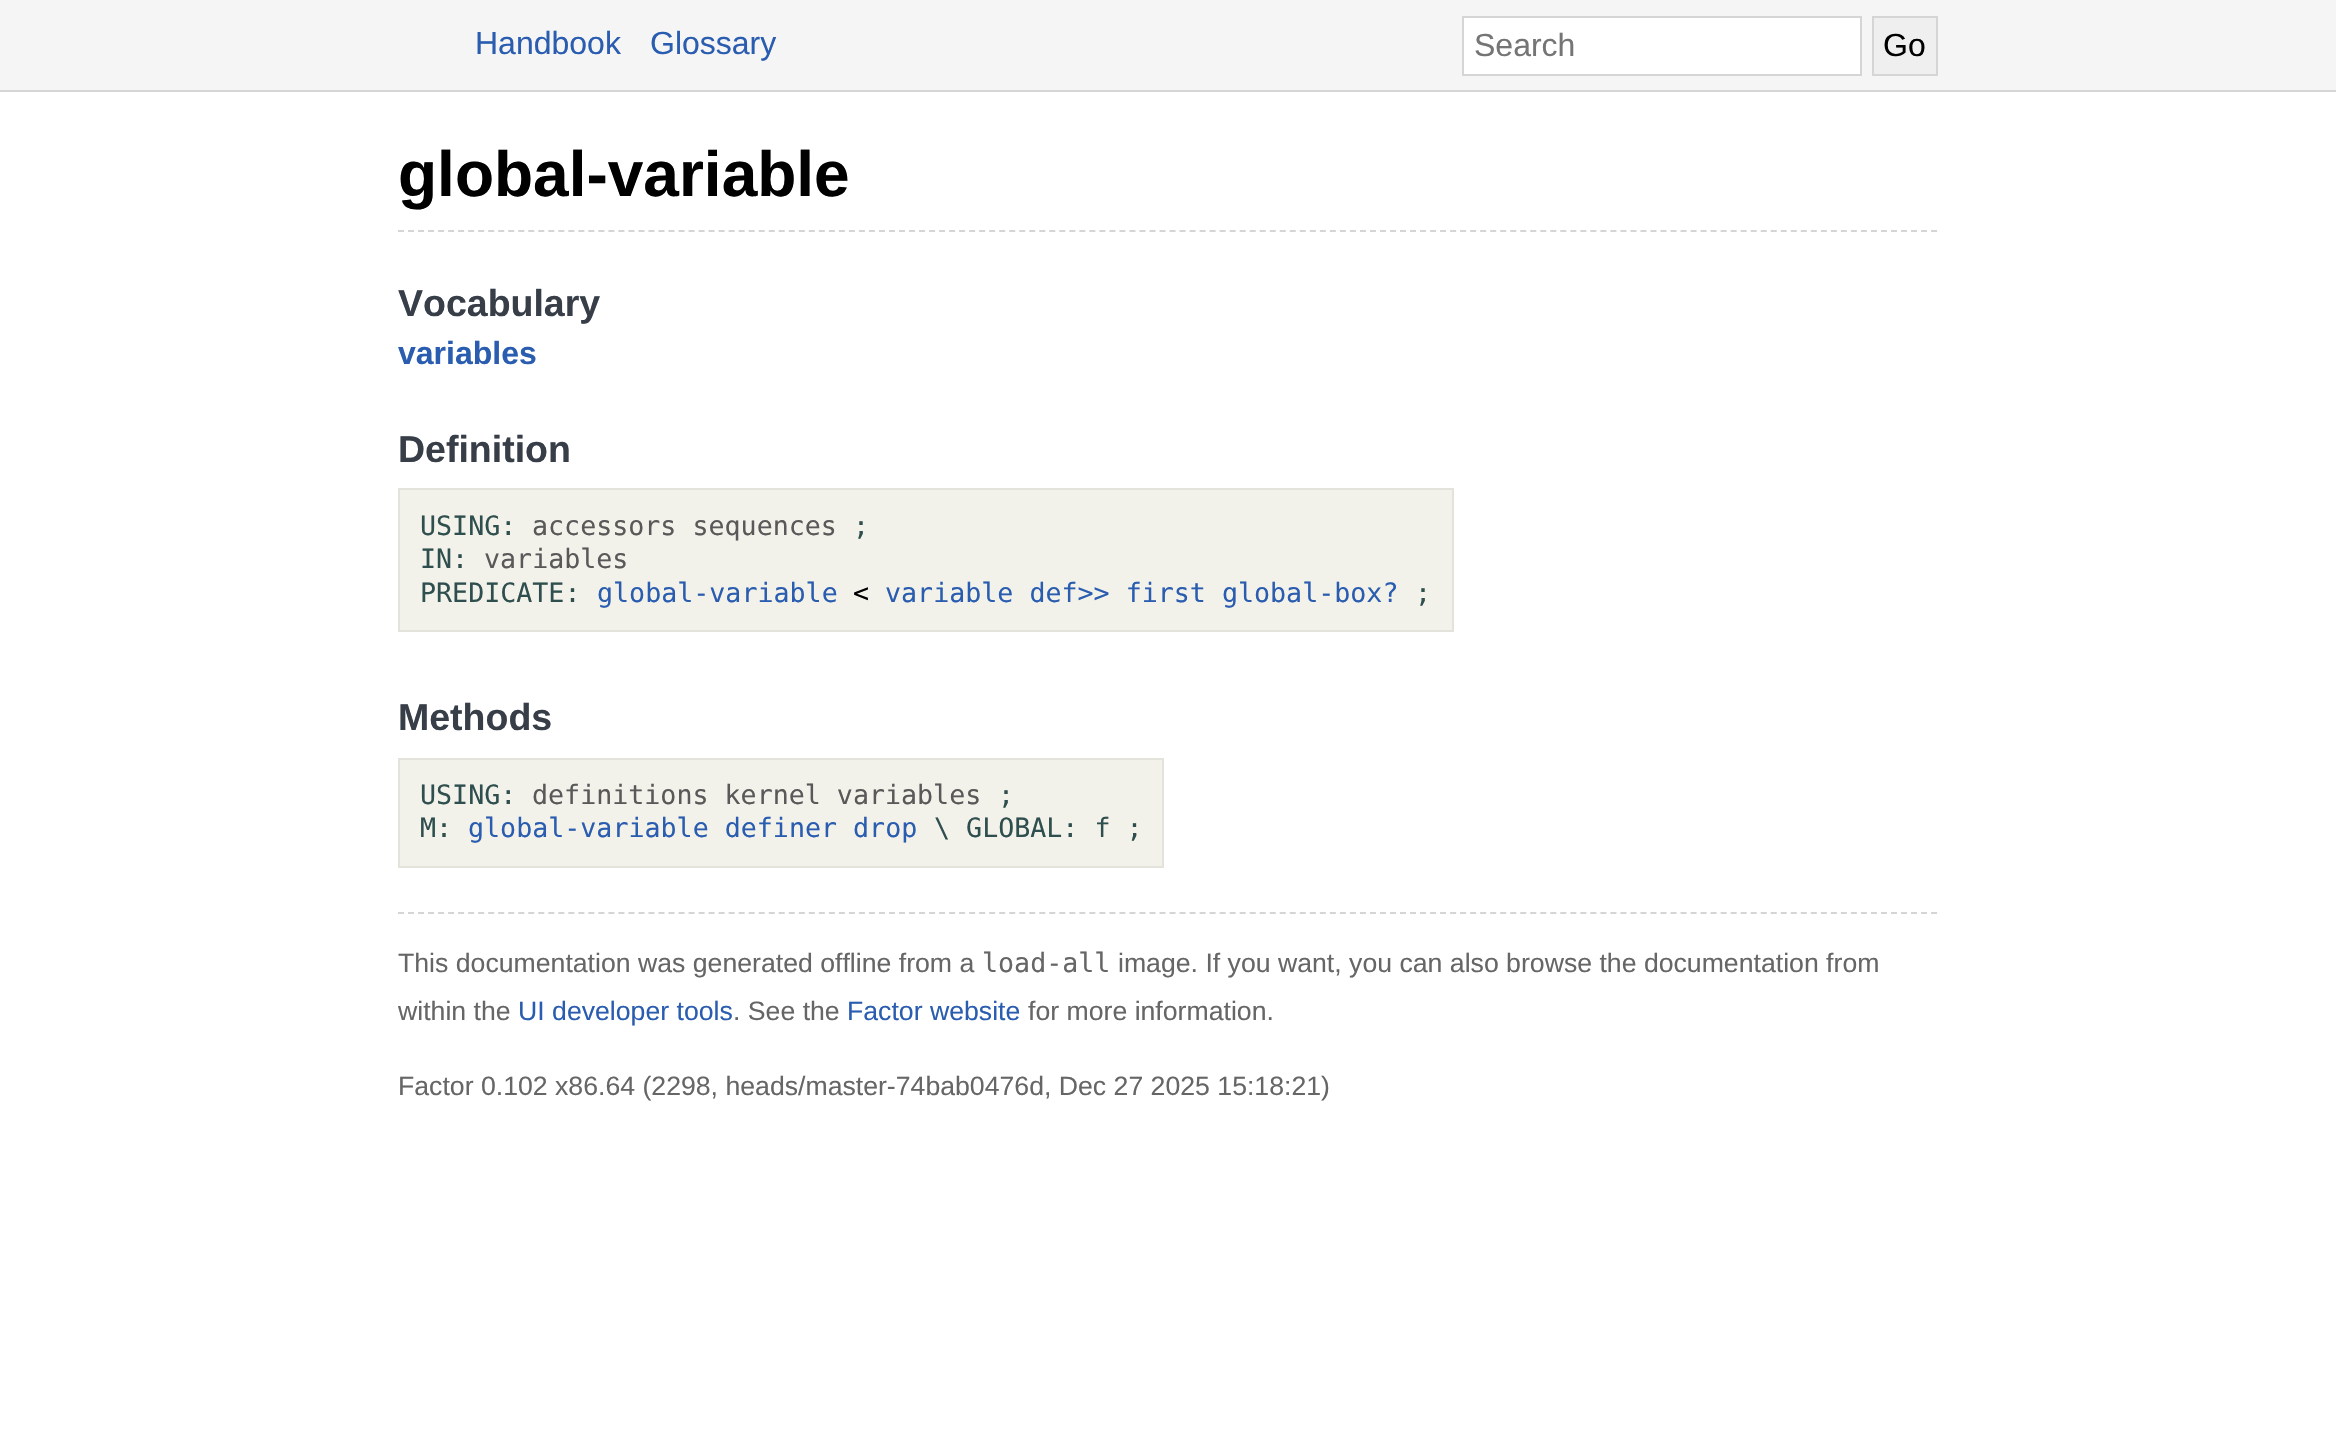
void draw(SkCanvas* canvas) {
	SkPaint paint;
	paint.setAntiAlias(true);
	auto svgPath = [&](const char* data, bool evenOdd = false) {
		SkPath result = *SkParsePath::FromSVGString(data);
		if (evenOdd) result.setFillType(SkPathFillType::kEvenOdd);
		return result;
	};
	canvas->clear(0xffffffff);
	paint.setColor(0xfff5f5f5);
	canvas->drawRect(SkRect::MakeXYWH(0, 0, 2336, 90), paint);
	paint.setColor(0xffd5d5d5);
	canvas->drawRect(SkRect::MakeXYWH(0, 90, 2336, 2), paint);
	SkFont f1(fontMgr->matchFamilyStyle("Liberation Sans", SkFontStyle::Normal()), 32);
	f1.setSubpixel(true);
	paint.setColor(0xff2a5db0);
	canvas->drawString("Handbook", 475, 54, f1, paint);
	canvas->drawString("Glossary", 650, 54, f1, paint);
	paint.setColor(0xffffffff);
	canvas->drawRect(SkRect::MakeXYWH(1463, 17, 398, 58), paint);
	paint.setStroke(true);
	paint.setStrokeWidth(2);
	paint.setColor(0xffd5d5d5);
	canvas->drawRect(SkRect::MakeXYWH(1463, 17, 398, 58), paint);
	paint.setStroke(false);
	paint.setColor(0xff757575);
	canvas->drawString("Search", 1474, 56, f1, paint);
	paint.setColor(0xffefefef);
	canvas->drawRect(SkRect::MakeXYWH(1873, 17, 64, 58), paint);
	paint.setStroke(true);
	paint.setColor(0xffd5d5d5);
	canvas->drawRect(SkRect::MakeXYWH(1873, 17, 64, 58), paint);
	paint.setStroke(false);
	paint.setColor(0xff000000);
	canvas->drawString("Go", 1883, 56, f1, paint);
	paint.setStroke(true);
	paint.setColor(0xffd5d5d5);
	paint.setPathEffect(SkDashPathEffect::Make({{6, 4.02f}}, 0));
	canvas->drawPath(svgPath("M398 231H1938"), paint);
	paint.setPathEffect(nullptr);
	SkFont f2(fontMgr->matchFamilyStyle("Liberation Sans", SkFontStyle::Bold()), 64);
	f2.setSubpixel(true);
	paint.setStroke(false);
	paint.setColor(0xff000000);
	canvas->drawString("global-variable", 398, 196, f2, paint);
	SkFont f3(fontMgr->matchFamilyStyle("Liberation Sans", SkFontStyle::Bold()), 37.5);
	f3.setSubpixel(true);
	paint.setColor(0xff373e48);
	canvas->drawString("Vocabulary", 398, 316, f3, paint);
	SkFont f4(fontMgr->matchFamilyStyle("Liberation Sans", SkFontStyle::Bold()), 32);
	f4.setSubpixel(true);
	paint.setColor(0xff2a5db0);
	canvas->drawString("variables", 398, 364, f4, paint);
	paint.setColor(0xff373e48);
	canvas->drawString("Definition", 398, 462, f3, paint);
	paint.setColor(0xfff3f2ea);
	canvas->drawRect(SkRect::MakeXYWH(399, 489, 1054, 142), paint);
	paint.setStroke(true);
	paint.setColor(0xffe3e2db);
	canvas->drawRect(SkRect::MakeXYWH(399, 489, 1054, 142), paint);
	SkFont f5(fontMgr->matchFamilyStyle("DejaVu Sans Mono", SkFontStyle::Normal()), 26.65);
	f5.setSubpixel(true);
	paint.setStroke(false);
	paint.setColor(0xff2f4f4f);
	canvas->drawString("USING:", 420, 535, f5, paint);
	paint.setColor(0xff595959);
	canvas->drawString("accessors sequences", 532, 535, f5, paint);
	paint.setColor(0xff2f4f4f);
	canvas->drawString(";", 853, 535, f5, paint);
	canvas->drawString("IN:", 420, 568, f5, paint);
	paint.setColor(0xff595959);
	canvas->drawString("variables", 484, 568, f5, paint);
	paint.setColor(0xff2f4f4f);
	canvas->drawString("PREDICATE:", 420, 602, f5, paint);
	paint.setColor(0xff2a5db0);
	canvas->drawString("global-variable", 597, 602, f5, paint);
	paint.setColor(0xff000000);
	canvas->drawString("<", 853, 602, f5, paint);
	paint.setColor(0xff2a5db0);
	canvas->drawString("variable def>> first global-box?", 885, 602, f5, paint);
	paint.setColor(0xff2f4f4f);
	canvas->drawString(";", 1415, 602, f5, paint);
	paint.setColor(0xff373e48);
	canvas->drawString("Methods", 398, 730, f3, paint);
	paint.setColor(0xfff3f2ea);
	canvas->drawRect(SkRect::MakeXYWH(399, 759, 764, 108), paint);
	paint.setStroke(true);
	paint.setColor(0xffe3e2db);
	canvas->drawRect(SkRect::MakeXYWH(399, 759, 764, 108), paint);
	paint.setStroke(false);
	paint.setColor(0xff2f4f4f);
	canvas->drawString("USING:", 420, 804, f5, paint);
	paint.setColor(0xff595959);
	canvas->drawString("definitions kernel variables", 532, 804, f5, paint);
	paint.setColor(0xff2f4f4f);
	canvas->drawString(";", 998, 804, f5, paint);
	canvas->drawString("M:", 420, 837, f5, paint);
	paint.setColor(0xff2a5db0);
	canvas->drawString("global-variable definer drop", 468, 837, f5, paint);
	paint.setColor(0xff2f4f4f);
	canvas->drawString("\\ GLOBAL: f ;", 934, 837, f5, paint);
	paint.setStroke(true);
	paint.setColor(0xffd5d5d5);
	paint.setPathEffect(SkDashPathEffect::Make({{6, 4.02f}}, 0));
	canvas->drawPath(svgPath("M398 913H1938"), paint);
	paint.setPathEffect(nullptr);
	SkFont f6(fontMgr->matchFamilyStyle("Liberation Sans", SkFontStyle::Normal()), 26.65);
	f6.setSubpixel(true);
	paint.setStroke(false);
	paint.setColor(0xff666666);
	canvas->drawString("This documentation was generated offline from a", 398, 972, f6, paint);
	canvas->drawString("load-all", 982, 972, f5, paint);
	canvas->drawString("image. If you want, you can also browse the documentation from", 1118, 972, f6, paint);
	canvas->drawString("within the", 398, 1020, f6, paint);
	paint.setColor(0xff2a5db0);
	canvas->drawString("UI developer tools", 518, 1020, f6, paint);
	paint.setColor(0xff666666);
	canvas->drawString(". See the", 733, 1020, f6, paint);
	paint.setColor(0xff2a5db0);
	canvas->drawString("Factor website", 847, 1020, f6, paint);
	paint.setColor(0xff666666);
	canvas->drawString("for more information.", 1028, 1020, f6, paint);
	canvas->drawString("Factor 0.102 x86.64 (2298, heads/master-74bab0476d, Dec 27 2025 15:18:21)", 398, 1095, f6, paint);
}
